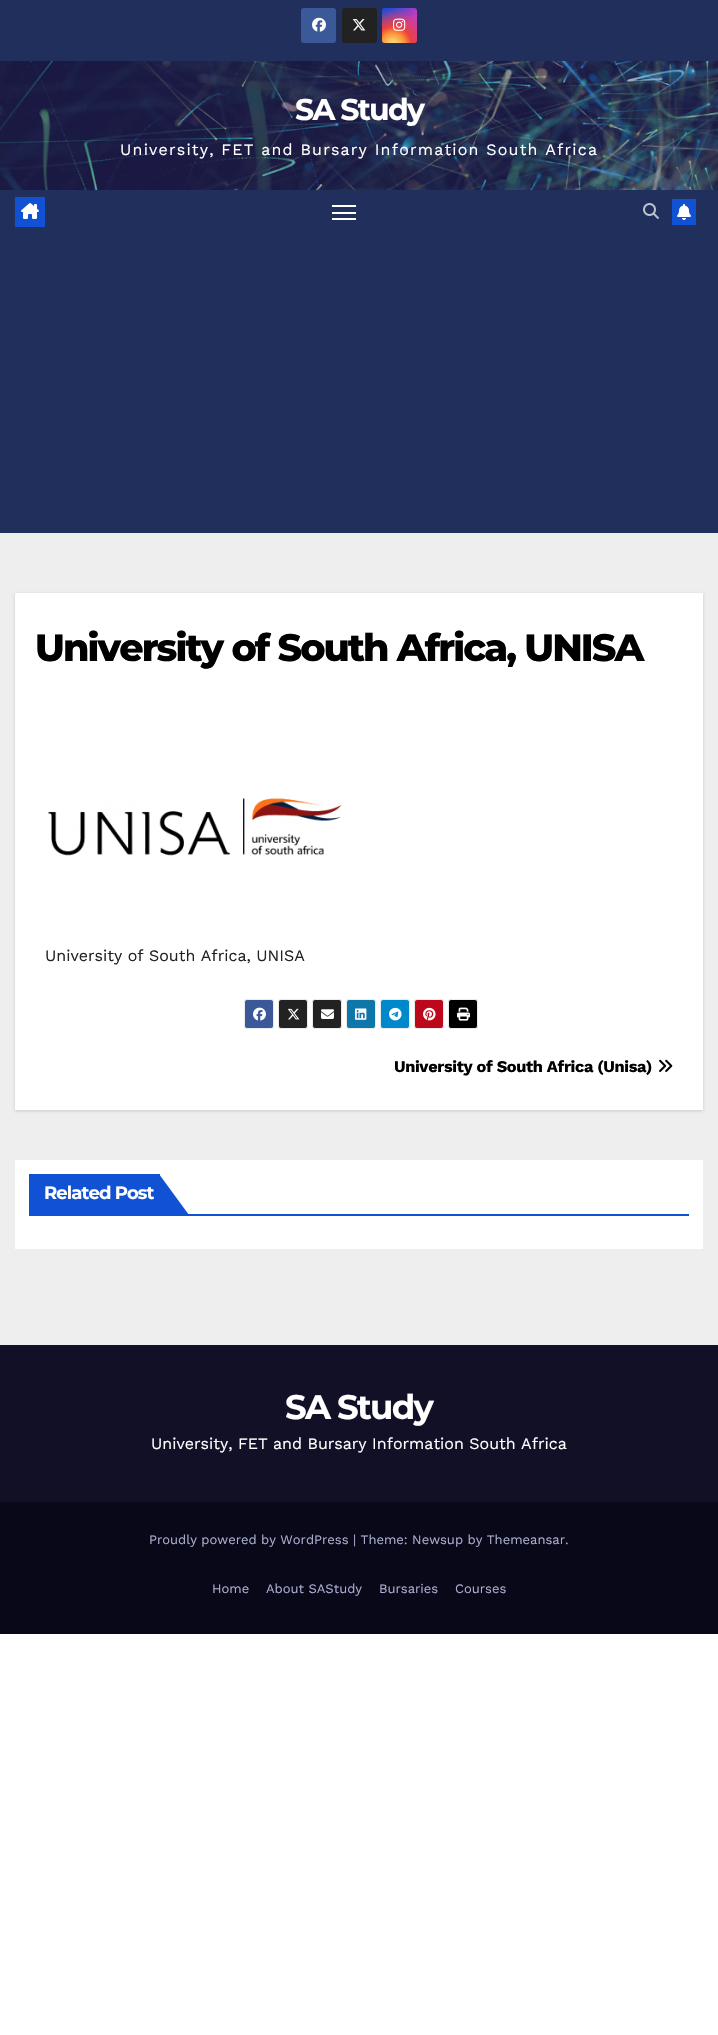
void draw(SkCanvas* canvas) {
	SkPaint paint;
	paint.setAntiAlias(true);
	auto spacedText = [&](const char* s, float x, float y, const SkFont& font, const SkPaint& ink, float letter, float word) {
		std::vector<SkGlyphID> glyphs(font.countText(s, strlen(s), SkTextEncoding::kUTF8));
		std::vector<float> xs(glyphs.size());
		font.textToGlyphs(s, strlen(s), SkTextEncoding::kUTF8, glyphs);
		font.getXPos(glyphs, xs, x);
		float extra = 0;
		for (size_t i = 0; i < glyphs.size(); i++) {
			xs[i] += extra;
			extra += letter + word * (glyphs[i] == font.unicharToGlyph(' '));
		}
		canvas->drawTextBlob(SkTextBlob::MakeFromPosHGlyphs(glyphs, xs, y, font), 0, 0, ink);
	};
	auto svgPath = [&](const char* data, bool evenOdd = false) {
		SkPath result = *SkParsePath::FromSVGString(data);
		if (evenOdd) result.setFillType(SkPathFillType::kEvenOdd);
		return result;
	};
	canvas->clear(0xffffffff);
	paint.setColor(0xffeeeeee);
	canvas->drawRect(SkRect::MakeXYWH(0, 533, 718, 812), paint);
	paint.setColor(0xff202f5b);
	canvas->drawRect(SkRect::MakeXYWH(0, 0, 718, 61), paint);
	paint.setColor(0xff3b5998);
	canvas->drawRoundRect(SkRect::MakeXYWH(301, 8, 35, 35), 3, 3, paint);
	canvas->drawImageRect(SkImages::DeferredFromEncodedData(SkData::MakeFromFileName("img1.png")), SkRect::MakeXYWH(312, 17, 14, 15), SkSamplingOptions());
	paint.setColor(0xff222222);
	canvas->drawRoundRect(SkRect::MakeXYWH(342, 8, 35, 35), 3, 3, paint);
	canvas->drawImageRect(SkImages::DeferredFromEncodedData(SkData::MakeFromFileName("img2.png")), SkRect::MakeXYWH(352, 19, 14, 12), SkSamplingOptions());
	{
		const SkColor colors[] = {0xff234bd7, 0xffc33cbe};
		const float stops[] = {0.12, 0.58};
		const SkPoint ends[] = {{382, 8}, {417, 43}};
		paint.setShader(SkGradientShader::MakeLinear(ends, colors, stops, 2, SkTileMode::kClamp));
		paint.setAlpha(255);
	}
	canvas->drawRoundRect(SkRect::MakeXYWH(382, 8, 35, 35), 3, 3, paint);
	{
		const SkColor colors[] = {0xffffe17d, 0xffffcd69, 0xfffa9137, 0xffeb4141, 0x00eb4141};
		const float stops[] = {0, 0.1, 0.28, 0.42, 0.82};
		paint.setShader(SkGradientShader::MakeRadial({393, 45}, 44, colors, stops, 5, SkTileMode::kClamp));
		paint.setAlpha(255);
	}
	canvas->drawRoundRect(SkRect::MakeXYWH(382, 8, 35, 35), 3, 3, paint);
	canvas->drawImageRect(SkImages::DeferredFromEncodedData(SkData::MakeFromFileName("img3.png")), SkRect::MakeXYWH(393, 18, 13, 13), SkSamplingOptions());
	canvas->drawImageRect(SkImages::DeferredFromEncodedData(SkData::MakeFromFileName("img4.png")), SkRect::MakeXYWH(0, 61, 718, 129), SkSamplingOptions());
	SkFont f1(fontMgr->matchFamilyStyle("Montserrat", SkFontStyle::Bold()), 30);
	f1.setSubpixel(true);
	paint.setShader(nullptr);
	paint.setColor(0xffffffff);
	spacedText("SA Study", 295, 120, f1, paint, -1.75, 0);
	SkFont f2(fontMgr->matchFamilyStyle("Work Sans", SkFontStyle::Normal()), 16);
	f2.setSubpixel(true);
	spacedText("University, FET and Bursary Information South Africa", 120, 155, f2, paint, 1.2, 0);
	paint.setColor(0xff202f5b);
	canvas->drawRect(SkRect::MakeXYWH(0, 190, 718, 343), paint);
	paint.setColor(0xff1151d3);
	canvas->drawRect(SkRect::MakeXYWH(15, 197, 30, 30), paint);
	canvas->drawImageRect(SkImages::DeferredFromEncodedData(SkData::MakeFromFileName("img5.png")), SkRect::MakeXYWH(21, 203, 18, 16), SkSamplingOptions());
	paint.setColor(0xffffffff);
	canvas->drawRect(SkRect::MakeXYWH(332, 205, 24, 2), paint);
	canvas->drawRect(SkRect::MakeXYWH(332, 212, 24, 2), paint);
	canvas->drawRect(SkRect::MakeXYWH(332, 218, 24, 2), paint);
	canvas->drawImageRect(SkImages::DeferredFromEncodedData(SkData::MakeFromFileName("img6.png")), SkRect::MakeXYWH(643, 203, 16, 16), SkSamplingOptions());
	paint.setColor(0xff1151d3);
	canvas->drawRect(SkRect::MakeXYWH(672, 199, 24, 26), paint);
	canvas->drawImageRect(SkImages::DeferredFromEncodedData(SkData::MakeFromFileName("img7.png")), SkRect::MakeXYWH(677, 204, 14, 16), SkSamplingOptions());
	paint.setColor(0x26000000);
	paint.setMaskFilter(SkMaskFilter::MakeBlur(kNormal_SkBlurStyle, 1.5));
	canvas->drawRect(SkRect::MakeXYWH(15, 594, 688, 517), paint);
	paint.setMaskFilter(nullptr);
	paint.setColor(0xffffffff);
	canvas->drawRect(SkRect::MakeXYWH(15, 593, 688, 517), paint);
	SkFont f3(fontMgr->matchFamilyStyle("Montserrat", SkFontStyle(800, SkFontStyle::kNormal_Width, SkFontStyle::kUpright_Slant)), 38);
	f3.setSubpixel(true);
	paint.setColor(0xff000000);
	spacedText("University of South Africa, UNISA", 35, 661, f3, paint, -1.9, 0);
	canvas->drawImageRect(SkImages::DeferredFromEncodedData(SkData::MakeFromFileName("img8.png")), SkRect::MakeXYWH(48, 798, 294, 58), SkSamplingOptions());
	paint.setColor(0xff222222);
	canvas->drawString("University of South Africa, UNISA", 45, 961, f2, paint);
	paint.setColor(0xff3b5998);
	canvas->drawRoundRect(SkRect::MakeXYWH(244.5, 999.5, 29, 29), 2.5, 2.5, paint);
	paint.setStroke(true);
	paint.setStrokeWidth(1);
	paint.setColor(0xffebebeb);
	canvas->drawRoundRect(SkRect::MakeXYWH(244.5, 999.5, 29, 29), 2.5, 2.5, paint);
	canvas->drawImageRect(SkImages::DeferredFromEncodedData(SkData::MakeFromFileName("img9.png")), SkRect::MakeXYWH(253, 1007, 13, 14), SkSamplingOptions());
	paint.setStroke(false);
	paint.setColor(0xff222222);
	canvas->drawRoundRect(SkRect::MakeXYWH(278.5, 999.5, 29, 29), 2.5, 2.5, paint);
	paint.setStroke(true);
	paint.setColor(0xffebebeb);
	canvas->drawRoundRect(SkRect::MakeXYWH(278.5, 999.5, 29, 29), 2.5, 2.5, paint);
	canvas->drawImageRect(SkImages::DeferredFromEncodedData(SkData::MakeFromFileName("img10.png")), SkRect::MakeXYWH(287, 1008, 13, 12), SkSamplingOptions());
	paint.setStroke(false);
	paint.setColor(0xff222222);
	canvas->drawRoundRect(SkRect::MakeXYWH(312.5, 999.5, 29, 29), 2.5, 2.5, paint);
	paint.setStroke(true);
	paint.setColor(0xffebebeb);
	canvas->drawRoundRect(SkRect::MakeXYWH(312.5, 999.5, 29, 29), 2.5, 2.5, paint);
	canvas->drawImageRect(SkImages::DeferredFromEncodedData(SkData::MakeFromFileName("img11.png")), SkRect::MakeXYWH(321, 1009, 13, 10), SkSamplingOptions());
	paint.setStroke(false);
	paint.setColor(0xff0e76a8);
	canvas->drawRoundRect(SkRect::MakeXYWH(346.5, 999.5, 29, 29), 2.5, 2.5, paint);
	paint.setStroke(true);
	paint.setColor(0xffebebeb);
	canvas->drawRoundRect(SkRect::MakeXYWH(346.5, 999.5, 29, 29), 2.5, 2.5, paint);
	canvas->drawImageRect(SkImages::DeferredFromEncodedData(SkData::MakeFromFileName("img12.png")), SkRect::MakeXYWH(355, 1008, 12, 12), SkSamplingOptions());
	paint.setStroke(false);
	paint.setColor(0xff0088cc);
	canvas->drawRoundRect(SkRect::MakeXYWH(380.5, 999.5, 29, 29), 2.5, 2.5, paint);
	paint.setStroke(true);
	paint.setColor(0xffebebeb);
	canvas->drawRoundRect(SkRect::MakeXYWH(380.5, 999.5, 29, 29), 2.5, 2.5, paint);
	canvas->drawImageRect(SkImages::DeferredFromEncodedData(SkData::MakeFromFileName("img13.png")), SkRect::MakeXYWH(389, 1007, 13, 14), SkSamplingOptions());
	paint.setStroke(false);
	paint.setColor(0xffbd081c);
	canvas->drawRoundRect(SkRect::MakeXYWH(414.5, 999.5, 29, 29), 2.5, 2.5, paint);
	paint.setStroke(true);
	paint.setColor(0xffebebeb);
	canvas->drawRoundRect(SkRect::MakeXYWH(414.5, 999.5, 29, 29), 2.5, 2.5, paint);
	canvas->drawImageRect(SkImages::DeferredFromEncodedData(SkData::MakeFromFileName("img14.png")), SkRect::MakeXYWH(423, 1007, 13, 14), SkSamplingOptions());
	paint.setStroke(false);
	paint.setColor(0xff000000);
	canvas->drawRoundRect(SkRect::MakeXYWH(448.5, 999.5, 29, 29), 2.5, 2.5, paint);
	paint.setStroke(true);
	paint.setColor(0xffebebeb);
	canvas->drawRoundRect(SkRect::MakeXYWH(448.5, 999.5, 29, 29), 2.5, 2.5, paint);
	canvas->drawImageRect(SkImages::DeferredFromEncodedData(SkData::MakeFromFileName("img15.png")), SkRect::MakeXYWH(457, 1007, 13, 14), SkSamplingOptions());
	SkFont f4(fontMgr->matchFamilyStyle("Work Sans", SkFontStyle::Bold()), 16.3);
	f4.setSubpixel(true);
	paint.setStroke(false);
	paint.setColor(0xff000000);
	spacedText("University of South Africa (Unisa)", 394, 1072, f4, paint, -0.35, 0);
	canvas->drawImageRect(SkImages::DeferredFromEncodedData(SkData::MakeFromFileName("img16.png")), SkRect::MakeXYWH(659, 1059, 14, 13), SkSamplingOptions());
	paint.setColor(0xffffffff);
	canvas->drawRect(SkRect::MakeXYWH(15, 1160, 688, 89), paint);
	paint.setColor(0xff1151d3);
	canvas->drawRect(SkRect::MakeXYWH(29, 1214, 660, 2), paint);
	canvas->drawRect(SkRect::MakeXYWH(29, 1174, 131, 40), paint);
	SkFont f5(fontMgr->matchFamilyStyle("Montserrat", SkFontStyle::Bold()), 18);
	f5.setSubpixel(true);
	paint.setColor(0xffffffff);
	spacedText("Related Post", 44, 1199, f5, paint, -0.9, 0);
	paint.setColor(0xff1151d3);
	canvas->drawPath(svgPath("M159 1174V1215H189Z"), paint);
	paint.setColor(0xff121026);
	canvas->drawRect(SkRect::MakeXYWH(0, 1345, 718, 157), paint);
	SkFont f6(fontMgr->matchFamilyStyle("Montserrat", SkFontStyle::Bold()), 34);
	f6.setSubpixel(true);
	paint.setColor(0xffffffff);
	spacedText("SA Study", 285, 1419, f6, paint, -1.75, 0);
	canvas->drawString("University, FET and Bursary Information South Africa", 151, 1449, f2, paint);
	paint.setColor(0xff090818);
	canvas->drawRect(SkRect::MakeXYWH(0, 1502, 718, 132), paint);
	SkFont f7(fontMgr->matchFamilyStyle("Work Sans", SkFontStyle::Normal()), 13);
	f7.setSubpixel(true);
	paint.setColor(0xffaaaed1);
	canvas->drawString("Proudly powered by WordPress | Theme: Newsup by Themeansar.", 149, 1544, f7, paint);
	canvas->drawString("Home", 212, 1593, f7, paint);
	canvas->drawString("About SAStudy", 266, 1593, f7, paint);
	canvas->drawString("Bursaries", 379, 1593, f7, paint);
	canvas->drawString("Courses", 455, 1593, f7, paint);
}
